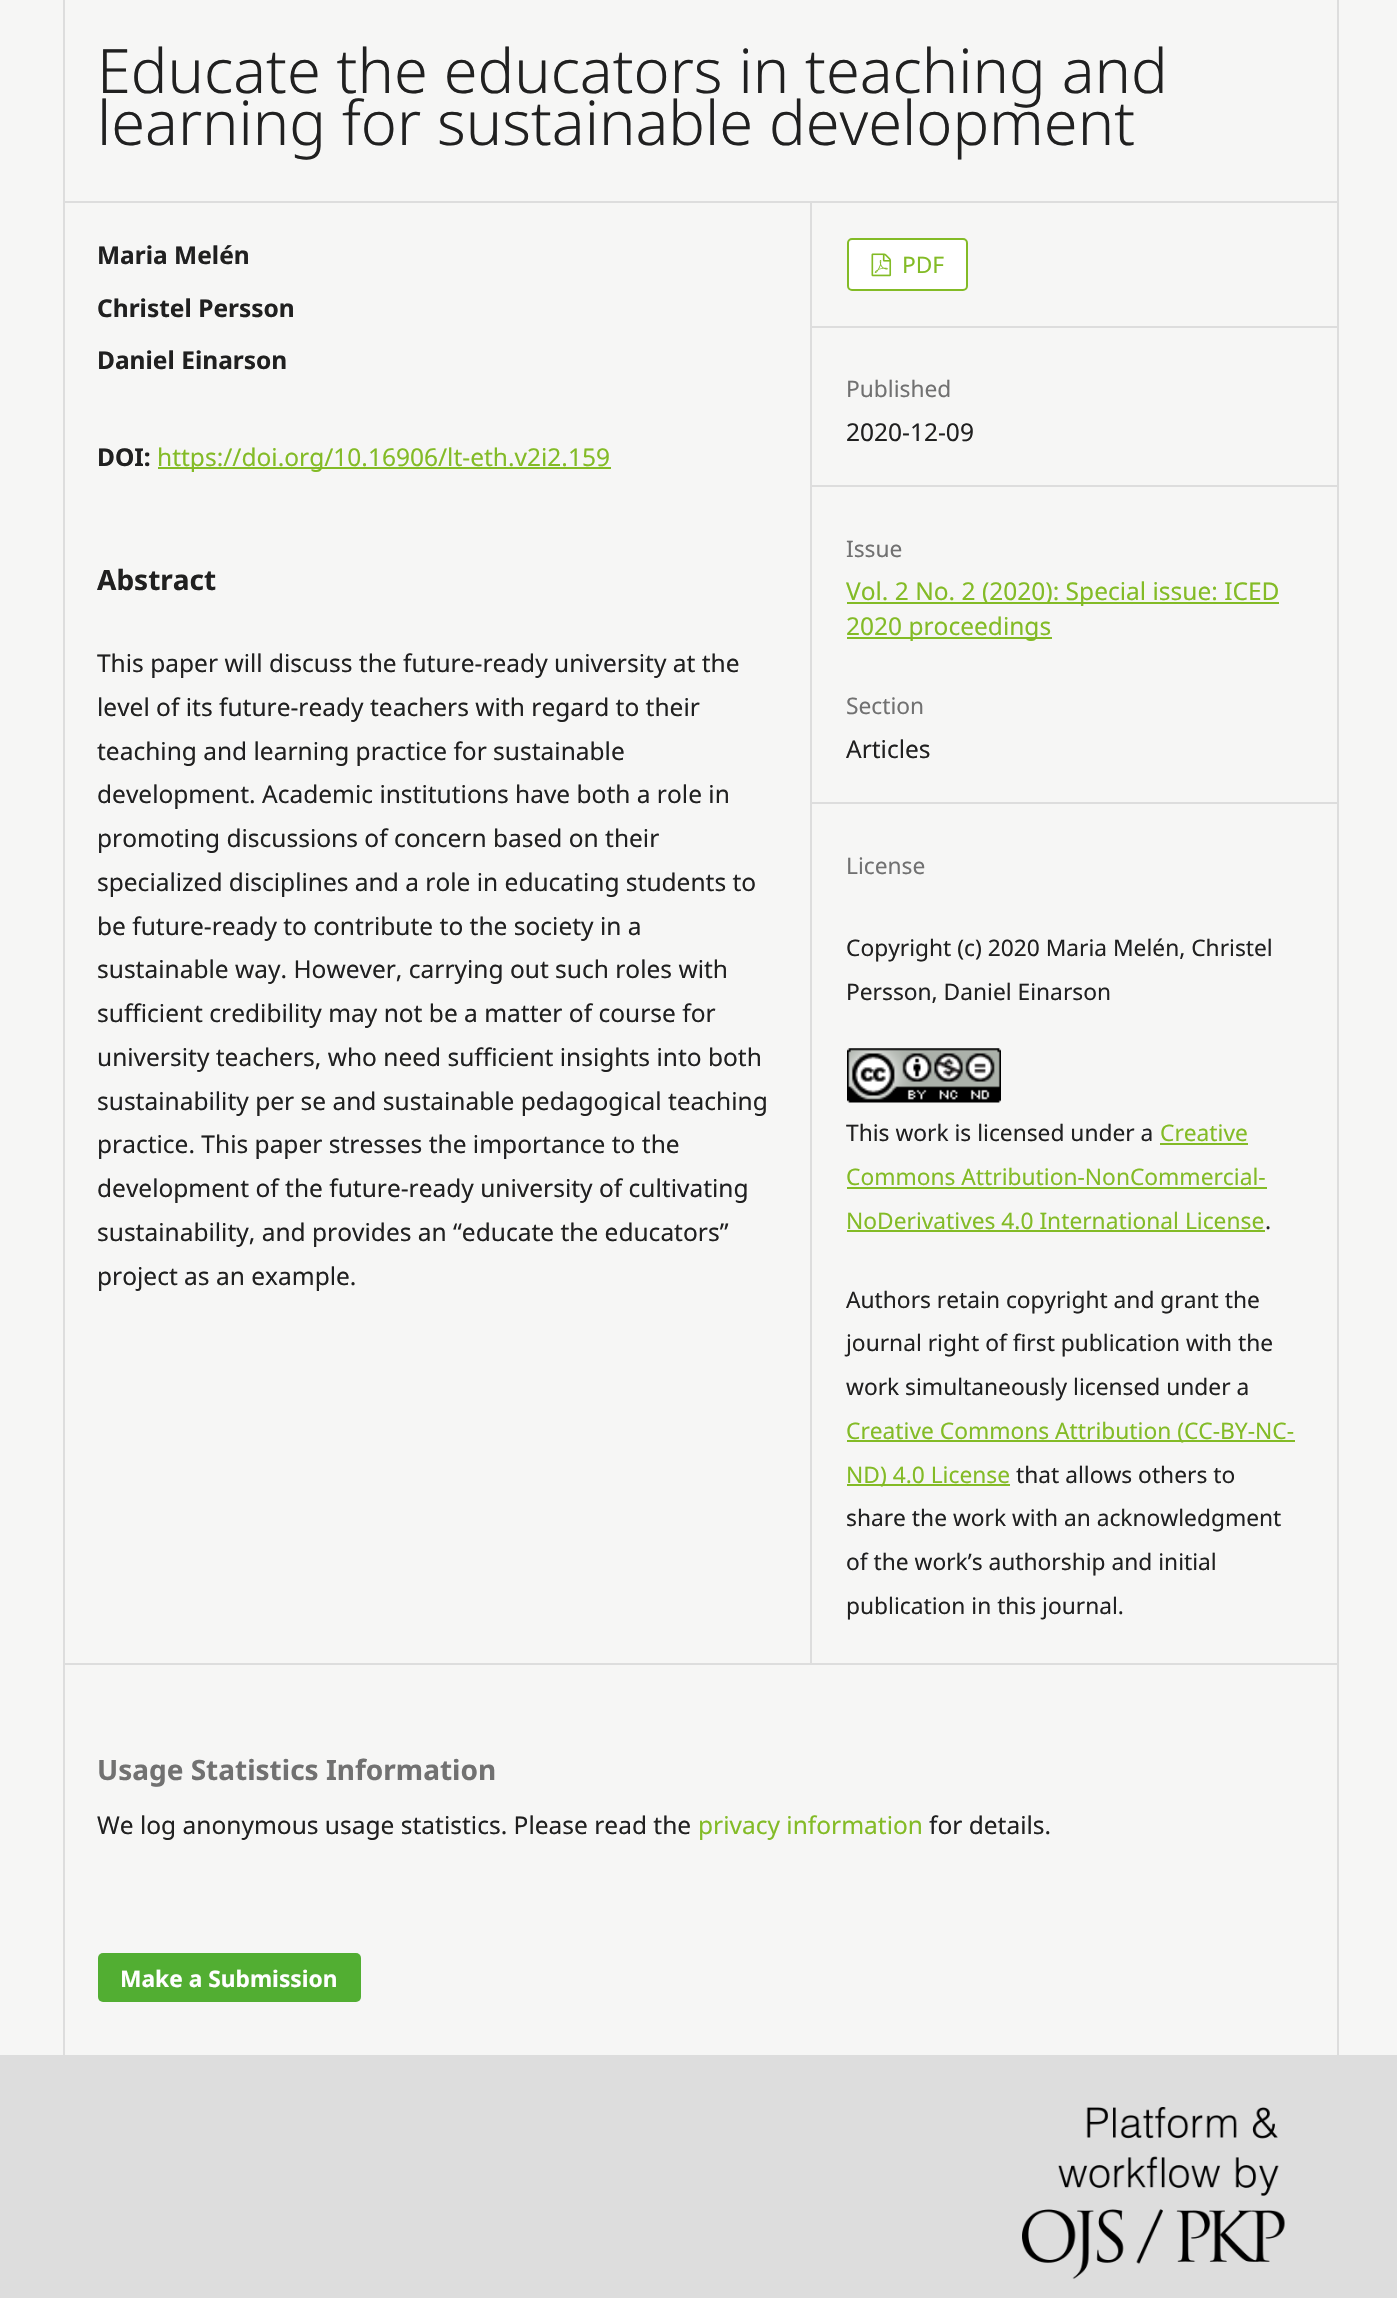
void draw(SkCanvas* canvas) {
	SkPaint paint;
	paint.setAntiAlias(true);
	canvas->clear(0xfff6f6f5);
	paint.setColor(0xffdddddd);
	canvas->drawRect(SkRect::MakeXYWH(63, 201, 1274, 2), paint);
	canvas->drawRect(SkRect::MakeXYWH(63, 1663, 1274, 2), paint);
	canvas->drawRect(SkRect::MakeXYWH(63, 0, 2, 2055), paint);
	SkFont f1(fontMgr->matchFamilyStyle("Noto Sans", SkFontStyle(300, SkFontStyle::kNormal_Width, SkFontStyle::kUpright_Slant)), 61.25);
	f1.setSubpixel(true);
	paint.setColor(0xff202020);
	canvas->drawString("Educate the educators in teaching and", 97, 93, f1, paint);
	canvas->drawString("learning for sustainable development", 97, 145, f1, paint);
	SkFont f2(fontMgr->matchFamilyStyle("Noto Sans", SkFontStyle::Bold()), 24.5);
	f2.setSubpixel(true);
	canvas->drawString("Maria Melén", 97, 264, f2, paint);
	canvas->drawString("Christel Persson", 97, 317, f2, paint);
	canvas->drawString("Daniel Einarson", 97, 369, f2, paint);
	canvas->drawString("DOI:", 97, 466, f2, paint);
	paint.setColor(0xff83bb26);
	canvas->drawRect(SkRect::MakeXYWH(158, 467, 453, 2), paint);
	SkFont f3(fontMgr->matchFamilyStyle("Noto Sans", SkFontStyle::Normal()), 24.5);
	f3.setSubpixel(true);
	canvas->drawString("https://doi.org/10.16906/lt-eth.v2i2.159", 157, 466, f3, paint);
	SkFont f4(fontMgr->matchFamilyStyle("Noto Sans", SkFontStyle::Bold()), 28);
	f4.setSubpixel(true);
	paint.setColor(0xff202020);
	canvas->drawString("Abstract", 97, 590, f4, paint);
	canvas->drawString("This paper will discuss the future-ready university at the", 97, 672, f3, paint);
	canvas->drawString("level of its future-ready teachers with regard to their", 97, 716, f3, paint);
	canvas->drawString("teaching and learning practice for sustainable", 97, 760, f3, paint);
	canvas->drawString("development. Academic institutions have both a role in", 97, 803, f3, paint);
	canvas->drawString("promoting discussions of concern based on their", 97, 847, f3, paint);
	canvas->drawString("specialized disciplines and a role in educating students to", 97, 891, f3, paint);
	canvas->drawString("be future-ready to contribute to the society in a", 97, 935, f3, paint);
	canvas->drawString("sustainable way. However, carrying out such roles with", 97, 978, f3, paint);
	canvas->drawString("sufficient credibility may not be a matter of course for", 97, 1022, f3, paint);
	canvas->drawString("university teachers, who need sufficient insights into both", 97, 1066, f3, paint);
	canvas->drawString("sustainability per se and sustainable pedagogical teaching", 97, 1110, f3, paint);
	canvas->drawString("practice. This paper stresses the importance to the", 97, 1153, f3, paint);
	canvas->drawString("development of the future-ready university of cultivating", 97, 1197, f3, paint);
	canvas->drawString("sustainability, and provides an “educate the educators”", 97, 1241, f3, paint);
	canvas->drawString("project as an example.", 97, 1285, f3, paint);
	paint.setColor(0xffdddddd);
	canvas->drawRect(SkRect::MakeXYWH(810, 203, 2, 1460), paint);
	canvas->drawRect(SkRect::MakeXYWH(812, 326, 525, 2), paint);
	paint.setColor(0xffffffff);
	canvas->drawRoundRect(SkRect::MakeXYWH(848, 239, 119, 51), 4, 4, paint);
	paint.setStroke(true);
	paint.setStrokeWidth(2);
	paint.setColor(0xff83bb26);
	canvas->drawRoundRect(SkRect::MakeXYWH(848, 239, 119, 51), 4, 4, paint);
	canvas->drawImageRect(SkImages::DeferredFromEncodedData(SkData::MakeFromFileName("img1.png")), SkRect::MakeXYWH(871, 253, 21, 24), SkSamplingOptions());
	SkFont f5(fontMgr->matchFamilyStyle("Noto Sans", SkFontStyle::Normal()), 22.75);
	f5.setSubpixel(true);
	paint.setStroke(false);
	canvas->drawString("PDF", 902, 273, f5, paint);
	paint.setColor(0xffdddddd);
	canvas->drawRect(SkRect::MakeXYWH(812, 485, 525, 2), paint);
	paint.setColor(0xff717171);
	canvas->drawString("Published", 846, 397, f5, paint);
	paint.setColor(0xff202020);
	canvas->drawString("2020-12-09", 846, 441, f3, paint);
	paint.setColor(0xffdddddd);
	canvas->drawRect(SkRect::MakeXYWH(812, 802, 525, 2), paint);
	paint.setColor(0xff717171);
	canvas->drawString("Issue", 846, 557, f5, paint);
	paint.setColor(0xff83bb26);
	canvas->drawRect(SkRect::MakeXYWH(847, 602, 432, 2), paint);
	canvas->drawString("Vol. 2 No. 2 (2020): Special issue: ICED", 846, 600, f3, paint);
	canvas->drawRect(SkRect::MakeXYWH(847, 637, 205, 2), paint);
	canvas->drawString("2020 proceedings", 846, 635, f3, paint);
	paint.setColor(0xff717171);
	canvas->drawString("Section", 846, 714, f5, paint);
	paint.setColor(0xff202020);
	canvas->drawString("Articles", 846, 758, f3, paint);
	paint.setColor(0xff717171);
	canvas->drawString("License", 846, 874, f5, paint);
	paint.setColor(0xff202020);
	canvas->drawString("Copyright (c) 2020 Maria Melén, Christel", 846, 956, f5, paint);
	canvas->drawString("Persson, Daniel Einarson", 846, 1000, f5, paint);
	canvas->drawImageRect(SkImages::DeferredFromEncodedData(SkData::MakeFromFileName("img2.png")), SkRect::MakeXYWH(847, 1048, 154, 55), SkSamplingOptions());
	canvas->drawString("This work is licensed under a", 846, 1141, f5, paint);
	paint.setColor(0xff83bb26);
	canvas->drawString("Creative", 1160, 1141, f5, paint);
	canvas->drawRect(SkRect::MakeXYWH(1160, 1143, 88, 2), paint);
	canvas->drawString("Commons Attribution-NonCommercial-", 846, 1185, f5, paint);
	canvas->drawRect(SkRect::MakeXYWH(847, 1187, 420, 2), paint);
	canvas->drawString("NoDerivatives 4.0 International License", 846, 1229, f5, paint);
	canvas->drawRect(SkRect::MakeXYWH(847, 1230, 418, 2), paint);
	paint.setColor(0xff202020);
	canvas->drawString(".", 1265, 1229, f5, paint);
	canvas->drawString("Authors retain copyright and grant the", 846, 1308, f5, paint);
	canvas->drawString("journal right of first publication with the", 846, 1351, f5, paint);
	canvas->drawString("work simultaneously licensed under a", 846, 1395, f5, paint);
	paint.setColor(0xff83bb26);
	canvas->drawRect(SkRect::MakeXYWH(847, 1440, 448, 2), paint);
	canvas->drawString("Creative Commons Attribution (CC-BY-NC-", 846, 1439, f5, paint);
	canvas->drawRect(SkRect::MakeXYWH(847, 1484, 163, 2), paint);
	canvas->drawString("ND) 4.0 License", 846, 1483, f5, paint);
	paint.setColor(0xff202020);
	canvas->drawString("that allows others to", 1016, 1483, f5, paint);
	canvas->drawString("share the work with an acknowledgment", 846, 1526, f5, paint);
	canvas->drawString("of the work’s authorship and initial", 846, 1570, f5, paint);
	canvas->drawString("publication in this journal.", 846, 1614, f5, paint);
	paint.setColor(0xffdddddd);
	canvas->drawRect(SkRect::MakeXYWH(1337, 0, 2, 2055), paint);
	paint.setColor(0xff717171);
	canvas->drawString("Usage Statistics Information", 97, 1780, f4, paint);
	paint.setColor(0xff202020);
	canvas->drawString("We log anonymous usage statistics. Please read the", 97, 1834, f3, paint);
	paint.setColor(0xff83bb26);
	canvas->drawString("privacy information", 698, 1834, f3, paint);
	paint.setColor(0xff202020);
	canvas->drawString("for details.", 929, 1834, f3, paint);
	paint.setColor(0xff52ae32);
	canvas->drawRoundRect(SkRect::MakeXYWH(98, 1953, 263, 49), 5, 5, paint);
	SkFont f6(fontMgr->matchFamilyStyle("Noto Sans", SkFontStyle::Bold()), 22.75);
	f6.setSubpixel(true);
	paint.setColor(0xffffffff);
	canvas->drawString("Make a Submission", 120, 1987, f6, paint);
	paint.setColor(0xffdddddd);
	canvas->drawRect(SkRect::MakeXYWH(0, 2055, 1397, 243), paint);
	canvas->drawImageRect(SkImages::DeferredFromEncodedData(SkData::MakeFromFileName("img3.png")), SkRect::MakeXYWH(1022, 2107, 263, 172), SkSamplingOptions());
}
